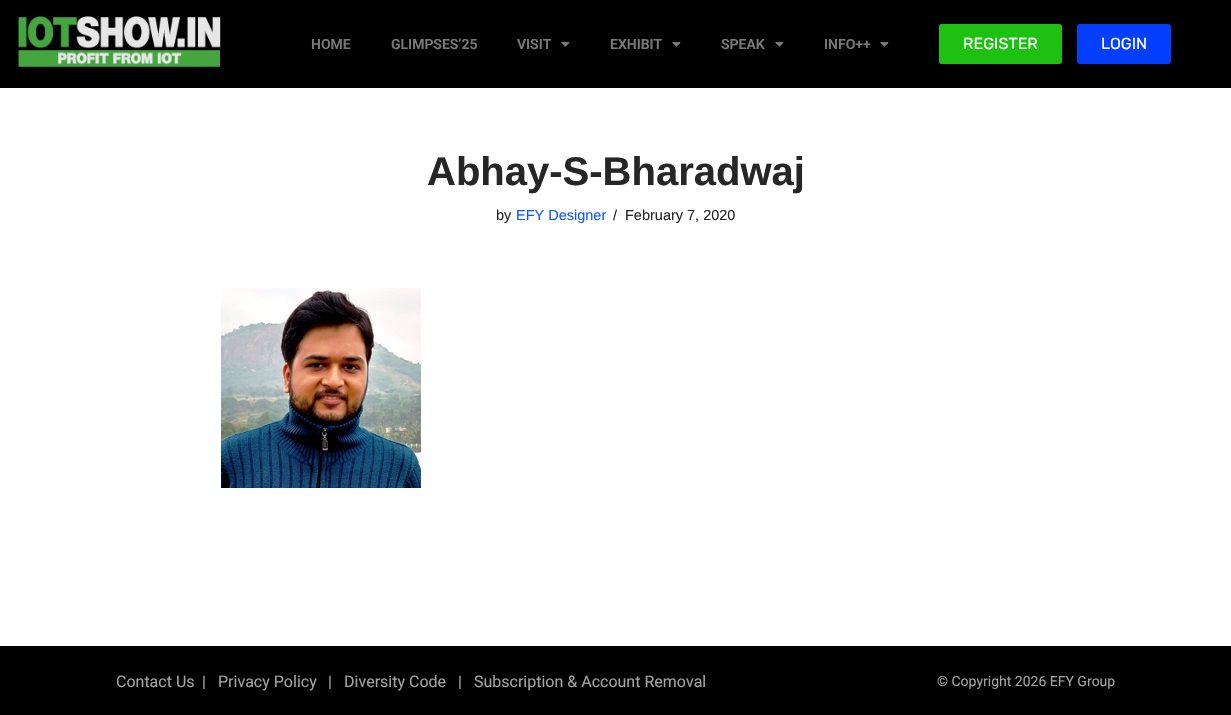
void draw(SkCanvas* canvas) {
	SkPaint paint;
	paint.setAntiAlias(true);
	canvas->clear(0xffffffff);
	paint.setColor(0xff000000);
	canvas->drawRect(SkRect::MakeXYWH(0, 0, 1231, 88), paint);
	canvas->drawImageRect(SkImages::DeferredFromEncodedData(SkData::MakeFromFileName("img1.png")), SkRect::MakeXYWH(18, 16, 203, 51), SkSamplingOptions());
	SkFont f1(fontMgr->matchFamilyStyle("Roboto", SkFontStyle(600, SkFontStyle::kNormal_Width, SkFontStyle::kUpright_Slant)), 14);
	f1.setSubpixel(true);
	paint.setColor(0xff7a7a7a);
	canvas->drawString("HOME", 311, 49, f1, paint);
	canvas->drawString("GLIMPSES’25", 391, 49, f1, paint);
	canvas->drawString("VISIT", 517, 49, f1, paint);
	canvas->drawImageRect(SkImages::DeferredFromEncodedData(SkData::MakeFromFileName("img2.png")), SkRect::MakeXYWH(561, 42, 9, 5), SkSamplingOptions());
	canvas->drawString("EXHIBIT", 610, 49, f1, paint);
	canvas->drawImageRect(SkImages::DeferredFromEncodedData(SkData::MakeFromFileName("img2.png")), SkRect::MakeXYWH(672, 42, 9, 5), SkSamplingOptions());
	canvas->drawString("SPEAK", 721, 49, f1, paint);
	canvas->drawImageRect(SkImages::DeferredFromEncodedData(SkData::MakeFromFileName("img2.png")), SkRect::MakeXYWH(775, 42, 9, 5), SkSamplingOptions());
	canvas->drawString("INFO++", 824, 49, f1, paint);
	canvas->drawImageRect(SkImages::DeferredFromEncodedData(SkData::MakeFromFileName("img2.png")), SkRect::MakeXYWH(880, 42, 9, 5), SkSamplingOptions());
	paint.setColor(0xff1cc112);
	canvas->drawRoundRect(SkRect::MakeXYWH(939, 24, 123, 40), 3, 3, paint);
	SkFont f2(fontMgr->matchFamilyStyle("Rubik", SkFontStyle::Normal()), 16);
	f2.setSubpixel(true);
	paint.setColor(0xffffffff);
	canvas->drawString("REGISTER", 963, 49, f2, paint);
	paint.setColor(0xff043eff);
	canvas->drawRoundRect(SkRect::MakeXYWH(1077, 24, 94, 40), 3, 3, paint);
	paint.setColor(0xffffffff);
	canvas->drawString("LOGIN", 1101, 49, f2, paint);
	SkFont f3(fontMgr->matchFamilyStyle("Liberation Sans", SkFontStyle::Bold()), 40);
	f3.setSubpixel(true);
	paint.setColor(0xff272626);
	canvas->drawString("Abhay-S-Bharadwaj", 427, 185, f3, paint);
	SkFont f4(fontMgr->matchFamilyStyle("Liberation Sans", SkFontStyle::Normal()), 14.5);
	f4.setSubpixel(true);
	canvas->drawString("by", 496, 220, f4, paint);
	paint.setColor(0xff0f58fb);
	canvas->drawString("EFY Designer", 516, 220, f4, paint);
	paint.setColor(0xff272626);
	canvas->drawString("/", 613, 220, f4, paint);
	canvas->drawString("February 7, 2020", 625, 220, f4, paint);
	canvas->drawImageRect(SkImages::DeferredFromEncodedData(SkData::MakeFromFileName("img3.png")), SkRect::MakeXYWH(221, 288, 200, 200), SkSamplingOptions());
	paint.setColor(0xff000000);
	canvas->drawRect(SkRect::MakeXYWH(0, 646, 1231, 69), paint);
	SkFont f5(fontMgr->matchFamilyStyle("Roboto", SkFontStyle::Normal()), 16);
	f5.setSubpixel(true);
	paint.setColor(0xffa3a3a3);
	canvas->drawString("Contact Us", 116, 687, f5, paint);
	canvas->drawString("|", 202, 687, f5, paint);
	canvas->drawString("Privacy Policy", 218, 687, f5, paint);
	canvas->drawString("|", 328, 687, f5, paint);
	canvas->drawString("Diversity Code", 344, 687, f5, paint);
	canvas->drawString("|", 458, 687, f5, paint);
	canvas->drawString("Subscription & Account Removal", 474, 687, f5, paint);
	SkFont f6(fontMgr->matchFamilyStyle("Roboto", SkFontStyle::Normal()), 14);
	f6.setSubpixel(true);
	canvas->drawString("© Copyright 2026 EFY Group", 937, 686, f6, paint);
}
